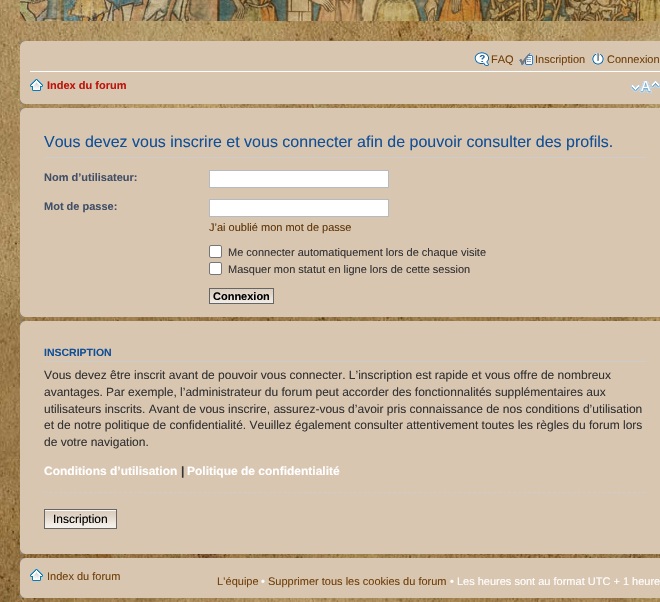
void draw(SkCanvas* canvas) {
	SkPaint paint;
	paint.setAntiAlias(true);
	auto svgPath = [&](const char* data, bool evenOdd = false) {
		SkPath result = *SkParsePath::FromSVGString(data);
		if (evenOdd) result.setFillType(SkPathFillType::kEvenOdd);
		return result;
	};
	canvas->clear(0xffffffff);
	canvas->drawImageRect(SkImages::DeferredFromEncodedData(SkData::MakeFromFileName("img1.png")), SkRect::MakeXYWH(0, 0, 660, 602), SkSamplingOptions());
	canvas->drawImageRect(SkImages::DeferredFromEncodedData(SkData::MakeFromFileName("img2.png")), SkRect::MakeXYWH(20, 0, 640, 21), SkSamplingOptions());
	paint.setColor(0xffd9c6b0);
	canvas->drawRect(SkRect::MakeXYWH(20, 41, 640, 63), paint);
	canvas->drawImageRect(SkImages::DeferredFromEncodedData(SkData::MakeFromFileName("img3.png")), SkRect::MakeXYWH(20, 41, 5, 5), SkSamplingOptions());
	canvas->drawImageRect(SkImages::DeferredFromEncodedData(SkData::MakeFromFileName("img4.png")), SkRect::MakeXYWH(474, 52, 16, 14), SkSamplingOptions());
	SkFont f1(fontMgr->matchFamilyStyle("Liberation Sans", SkFontStyle::Normal()), 11);
	f1.setSubpixel(true);
	paint.setColor(0xff70400a);
	canvas->drawString("FAQ", 491, 63, f1, paint);
	canvas->drawImageRect(SkImages::DeferredFromEncodedData(SkData::MakeFromFileName("img5.png")), SkRect::MakeXYWH(519, 53, 14, 13), SkSamplingOptions());
	canvas->drawString("Inscription", 535, 63, f1, paint);
	canvas->drawImageRect(SkImages::DeferredFromEncodedData(SkData::MakeFromFileName("img6.png")), SkRect::MakeXYWH(592, 53, 12, 12), SkSamplingOptions());
	canvas->drawString("Connexion", 607, 63, f1, paint);
	paint.setColor(0xffffffff);
	canvas->drawRect(SkRect::MakeXYWH(30, 71, 630, 1), paint);
	canvas->drawImageRect(SkImages::DeferredFromEncodedData(SkData::MakeFromFileName("img7.png")), SkRect::MakeXYWH(30, 79, 13, 12), SkSamplingOptions());
	SkFont f2(fontMgr->matchFamilyStyle("Liberation Sans", SkFontStyle::Bold()), 11);
	f2.setSubpixel(true);
	paint.setColor(0xffbc150d);
	canvas->drawString("Index du forum", 47, 89, f2, paint);
	canvas->drawImageRect(SkImages::DeferredFromEncodedData(SkData::MakeFromFileName("img8.png")), SkRect::MakeXYWH(631, 81, 29, 12), SkSamplingOptions());
	canvas->drawImageRect(SkImages::DeferredFromEncodedData(SkData::MakeFromFileName("img9.png")), SkRect::MakeXYWH(20, 99, 5, 5), SkSamplingOptions());
	paint.setColor(0xffd9c6b0);
	canvas->drawRect(SkRect::MakeXYWH(20, 108, 640, 209), paint);
	canvas->drawImageRect(SkImages::DeferredFromEncodedData(SkData::MakeFromFileName("img3.png")), SkRect::MakeXYWH(20, 108, 5, 5), SkSamplingOptions());
	paint.setColor(0xffcccccc);
	canvas->drawRect(SkRect::MakeXYWH(44, 157, 602, 1), paint);
	SkFont f3(fontMgr->matchFamilyStyle("Liberation Sans", SkFontStyle::Normal()), 16);
	f3.setSubpixel(true);
	paint.setColor(0xff115098);
	canvas->drawString("Vous devez vous inscrire et vous connecter afin de pouvoir consulter des profils.", 44, 147, f3, paint);
	paint.setColor(0xff425067);
	canvas->drawString("Nom d’utilisateur:", 44, 181, f2, paint);
	paint.setColor(0xffffffff);
	canvas->drawRect(SkRect::MakeXYWH(209.5, 170.5, 179, 17), paint);
	paint.setStroke(true);
	paint.setStrokeWidth(1);
	paint.setColor(0xffb4bac0);
	canvas->drawRect(SkRect::MakeXYWH(209.5, 170.5, 179, 17), paint);
	paint.setStroke(false);
	paint.setColor(0xff425067);
	canvas->drawString("Mot de passe:", 44, 210, f2, paint);
	paint.setColor(0xffffffff);
	canvas->drawRect(SkRect::MakeXYWH(209.5, 199.5, 179, 17), paint);
	paint.setStroke(true);
	paint.setColor(0xffb4bac0);
	canvas->drawRect(SkRect::MakeXYWH(209.5, 199.5, 179, 17), paint);
	paint.setStroke(false);
	paint.setColor(0xff603708);
	canvas->drawString("J’ai oublié mon mot de passe", 209, 231, f1, paint);
	paint.setColor(0xffffffff);
	canvas->drawRoundRect(SkRect::MakeXYWH(209.5, 245.5, 12, 12), 1.5, 1.5, paint);
	paint.setStroke(true);
	paint.setColor(0xff767676);
	canvas->drawRoundRect(SkRect::MakeXYWH(209.5, 245.5, 12, 12), 1.5, 1.5, paint);
	paint.setStroke(false);
	paint.setColor(0xff333333);
	canvas->drawString("Me connecter automatiquement lors de chaque visite", 228, 256, f1, paint);
	paint.setColor(0xffffffff);
	canvas->drawRoundRect(SkRect::MakeXYWH(209.5, 262.5, 12, 12), 1.5, 1.5, paint);
	paint.setStroke(true);
	paint.setColor(0xff767676);
	canvas->drawRoundRect(SkRect::MakeXYWH(209.5, 262.5, 12, 12), 1.5, 1.5, paint);
	paint.setStroke(false);
	paint.setColor(0xff333333);
	canvas->drawString("Masquer mon statut en ligne lors de cette session", 228, 273, f1, paint);
	canvas->drawImageRect(SkImages::DeferredFromEncodedData(SkData::MakeFromFileName("img10.png")), SkRect::MakeXYWH(210, 289, 63, 14), SkSamplingOptions());
	paint.setStroke(true);
	paint.setColor(0xff666666);
	canvas->drawRect(SkRect::MakeXYWH(209.5, 288.5, 64, 15), paint);
	paint.setStroke(false);
	paint.setColor(0xff000000);
	canvas->drawString("Connexion", 213, 300, f2, paint);
	canvas->drawImageRect(SkImages::DeferredFromEncodedData(SkData::MakeFromFileName("img9.png")), SkRect::MakeXYWH(20, 312, 5, 5), SkSamplingOptions());
	paint.setColor(0xffd9c6b0);
	canvas->drawRect(SkRect::MakeXYWH(20, 321, 640, 233), paint);
	canvas->drawImageRect(SkImages::DeferredFromEncodedData(SkData::MakeFromFileName("img3.png")), SkRect::MakeXYWH(20, 321, 5, 5), SkSamplingOptions());
	paint.setColor(0xffcccccc);
	canvas->drawRect(SkRect::MakeXYWH(44, 361, 602, 1), paint);
	SkFont f4(fontMgr->matchFamilyStyle("Liberation Sans", SkFontStyle::Bold()), 10.5);
	f4.setSubpixel(true);
	paint.setColor(0xff115098);
	canvas->drawString("INSCRIPTION", 44, 356, f4, paint);
	SkFont f5(fontMgr->matchFamilyStyle("Liberation Sans", SkFontStyle::Normal()), 12);
	f5.setSubpixel(true);
	paint.setColor(0xff333333);
	canvas->drawString("Vous devez être inscrit avant de pouvoir vous connecter. L’inscription est rapide et vous offre de nombreux", 44, 379, f5, paint);
	canvas->drawString("avantages. Par exemple, l’administrateur du forum peut accorder des fonctionnalités supplémentaires aux", 44, 396, f5, paint);
	canvas->drawString("utilisateurs inscrits. Avant de vous inscrire, assurez-vous d’avoir pris connaissance de nos conditions d’utilisation", 44, 413, f5, paint);
	canvas->drawString("et de notre politique de confidentialité. Veuillez également consulter attentivement toutes les règles du forum lors", 44, 429, f5, paint);
	canvas->drawString("de votre navigation.", 44, 446, f5, paint);
	SkFont f6(fontMgr->matchFamilyStyle("Liberation Sans", SkFontStyle::Bold()), 12);
	f6.setSubpixel(true);
	paint.setColor(0xffffffff);
	canvas->drawString("Conditions d’utilisation", 44, 475, f6, paint);
	paint.setColor(0xff333333);
	canvas->drawString("|", 181, 475, f6, paint);
	paint.setColor(0xffffffff);
	canvas->drawString("Politique de confidentialité", 187, 475, f6, paint);
	paint.setStroke(true);
	paint.setColor(0xffcccccc);
	paint.setPathEffect(SkDashPathEffect::Make({{3, 1.99f}}, 0));
	canvas->drawPath(svgPath("M44 492.5H646"), paint);
	paint.setPathEffect(nullptr);
	canvas->drawImageRect(SkImages::DeferredFromEncodedData(SkData::MakeFromFileName("img11.png")), SkRect::MakeXYWH(45, 511, 71, 17), SkSamplingOptions());
	paint.setStroke(false);
	paint.setColor(0xfffafafa);
	canvas->drawRect(SkRect::MakeXYWH(45, 510, 71, 1), paint);
	paint.setStroke(true);
	paint.setColor(0xff666666);
	canvas->drawRect(SkRect::MakeXYWH(44.5, 509.5, 72, 19), paint);
	paint.setStroke(false);
	paint.setColor(0xff000000);
	canvas->drawString("Inscription", 53, 523, f5, paint);
	canvas->drawImageRect(SkImages::DeferredFromEncodedData(SkData::MakeFromFileName("img9.png")), SkRect::MakeXYWH(20, 549, 5, 5), SkSamplingOptions());
	paint.setColor(0xffd9c6b0);
	canvas->drawRect(SkRect::MakeXYWH(20, 558, 640, 40), paint);
	canvas->drawImageRect(SkImages::DeferredFromEncodedData(SkData::MakeFromFileName("img3.png")), SkRect::MakeXYWH(20, 558, 5, 5), SkSamplingOptions());
	canvas->drawImageRect(SkImages::DeferredFromEncodedData(SkData::MakeFromFileName("img7.png")), SkRect::MakeXYWH(30, 569, 13, 12), SkSamplingOptions());
	paint.setColor(0xff70400a);
	canvas->drawString("Index du forum", 47, 580, f1, paint);
	canvas->drawString("L’équipe", 217, 585, f1, paint);
	paint.setColor(0xffffffff);
	canvas->drawString("•", 261, 585, f1, paint);
	paint.setColor(0xff70400a);
	canvas->drawString("Supprimer tous les cookies du forum", 268, 585, f1, paint);
	paint.setColor(0xffffffff);
	canvas->drawString("• Les heures sont au format UTC + 1 heure", 450, 585, f1, paint);
	canvas->drawImageRect(SkImages::DeferredFromEncodedData(SkData::MakeFromFileName("img9.png")), SkRect::MakeXYWH(20, 593, 5, 5), SkSamplingOptions());
}
